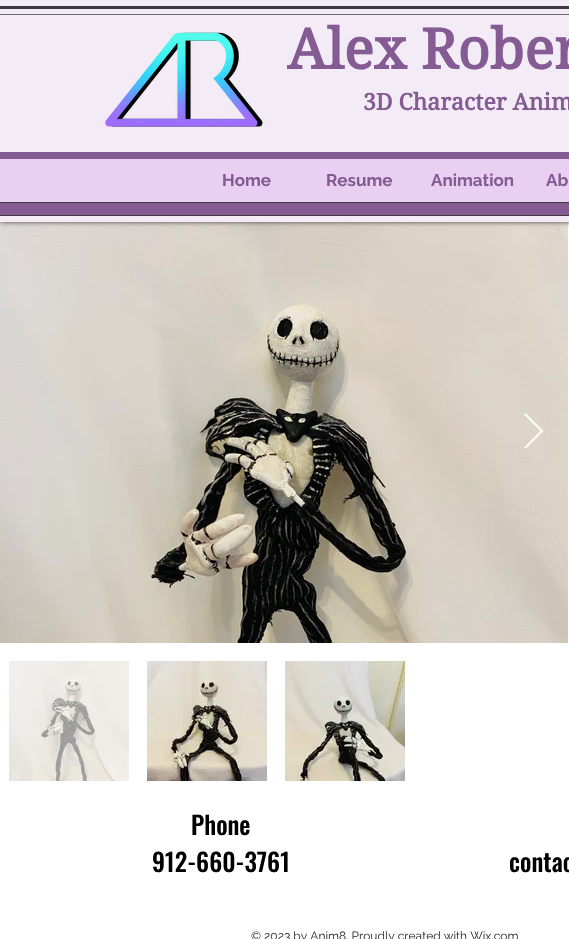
void draw(SkCanvas* canvas) {
	SkPaint paint;
	paint.setAntiAlias(true);
	auto svgPath = [&](const char* data, bool evenOdd = false) {
		SkPath result = *SkParsePath::FromSVGString(data);
		if (evenOdd) result.setFillType(SkPathFillType::kEvenOdd);
		return result;
	};
	canvas->clear(0xffffffff);
	canvas->drawImageRect(SkImages::DeferredFromEncodedData(SkData::MakeFromFileName("img3.png")), SkRect::MakeXYWH(0, 222, 568, 421), SkSamplingOptions());
	paint.setColor(0xb3000000);
	paint.setMaskFilter(SkMaskFilter::MakeBlur(kNormal_SkBlurStyle, 2.5));
	canvas->drawRect(SkRect::MakeXYWH(0, 0, 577, 222), paint);
	paint.setMaskFilter(nullptr);
	paint.setColor(0xfff3ecf6);
	canvas->drawRect(SkRect::MakeXYWH(0, 0, 569, 222), paint);
	paint.setColor(0xff3b3b3b);
	canvas->drawRect(SkRect::MakeXYWH(0, 6, 569, 3), paint);
	canvas->drawRect(SkRect::MakeXYWH(0, 215, 569, 1), paint);
	paint.setColor(0xff6c6c6c);
	canvas->drawRect(SkRect::MakeXYWH(0, 14, 569, 1), paint);
	canvas->drawImageRect(SkImages::DeferredFromEncodedData(SkData::MakeFromFileName("img2.png")), SkRect::MakeXYWH(110, 32, 153, 95), SkSamplingOptions());
	canvas->drawImageRect(SkImages::DeferredFromEncodedData(SkData::MakeFromFileName("img1.png")), SkRect::MakeXYWH(105, 32, 153, 95), SkSamplingOptions());
	SkFont f1(fontMgr->matchFamilyStyle("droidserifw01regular", SkFontStyle::Bold()), 56);
	f1.setSubpixel(true);
	paint.setColor(0xff855b94);
	canvas->drawString("Alex Rober", 287, 69, f1, paint);
	SkFont f2(fontMgr->matchFamilyStyle("droidserifw01regular", SkFontStyle::Bold()), 23);
	f2.setSubpixel(true);
	canvas->drawString("3D Character Anim", 363, 110, f2, paint);
	canvas->drawRect(SkRect::MakeXYWH(0, 152, 569, 63), paint);
	paint.setColor(0xffe9d0f2);
	canvas->drawRect(SkRect::MakeXYWH(0, 159, 569, 43), paint);
	paint.setColor(0xff3b3b3b);
	canvas->drawRect(SkRect::MakeXYWH(0, 202, 569, 1), paint);
	SkFont f3(fontMgr->matchFamilyStyle("Raleway", SkFontStyle::Bold()), 17);
	f3.setSubpixel(true);
	paint.setColor(0xff855b94);
	canvas->drawString("Home", 222, 186, f3, paint);
	canvas->drawString("Resume", 326, 186, f3, paint);
	canvas->drawString("Animation", 431, 186, f3, paint);
	canvas->drawString("Ab", 546, 186, f3, paint);
	paint.setColor(0xe6ffffff);
	canvas->drawPath(svgPath("M524 414.5L525.5 413L543.5 431L525.5 449L524 447.5L540.5 431Z"), paint);
	canvas->drawImageRect(SkImages::DeferredFromEncodedData(SkData::MakeFromFileName("img4.png")), SkRect::MakeXYWH(9, 661, 120, 120), SkSamplingOptions());
	canvas->drawImageRect(SkImages::DeferredFromEncodedData(SkData::MakeFromFileName("img5.png")), SkRect::MakeXYWH(147, 661, 120, 120), SkSamplingOptions());
	canvas->drawImageRect(SkImages::DeferredFromEncodedData(SkData::MakeFromFileName("img6.png")), SkRect::MakeXYWH(285, 661, 120, 120), SkSamplingOptions());
	SkFont f4(fontMgr->matchFamilyStyle("Oswald", SkFontStyle(500, SkFontStyle::kNormal_Width, SkFontStyle::kUpright_Slant)), 25);
	f4.setSubpixel(true);
	paint.setColor(0xff000000);
	canvas->drawString("Phone", 191, 835, f4, paint);
	canvas->drawString("912-660-3761", 152, 872, f4, paint);
	canvas->drawString("contac", 509, 872, f4, paint);
	SkFont f5(fontMgr->matchFamilyStyle("Raleway", SkFontStyle::Normal()), 12);
	f5.setSubpixel(true);
	paint.setColor(0xff3b3b3b);
	canvas->drawString("© 2023 by Anim8. Proudly created with Wix.com", 251, 940, f5, paint);
}
